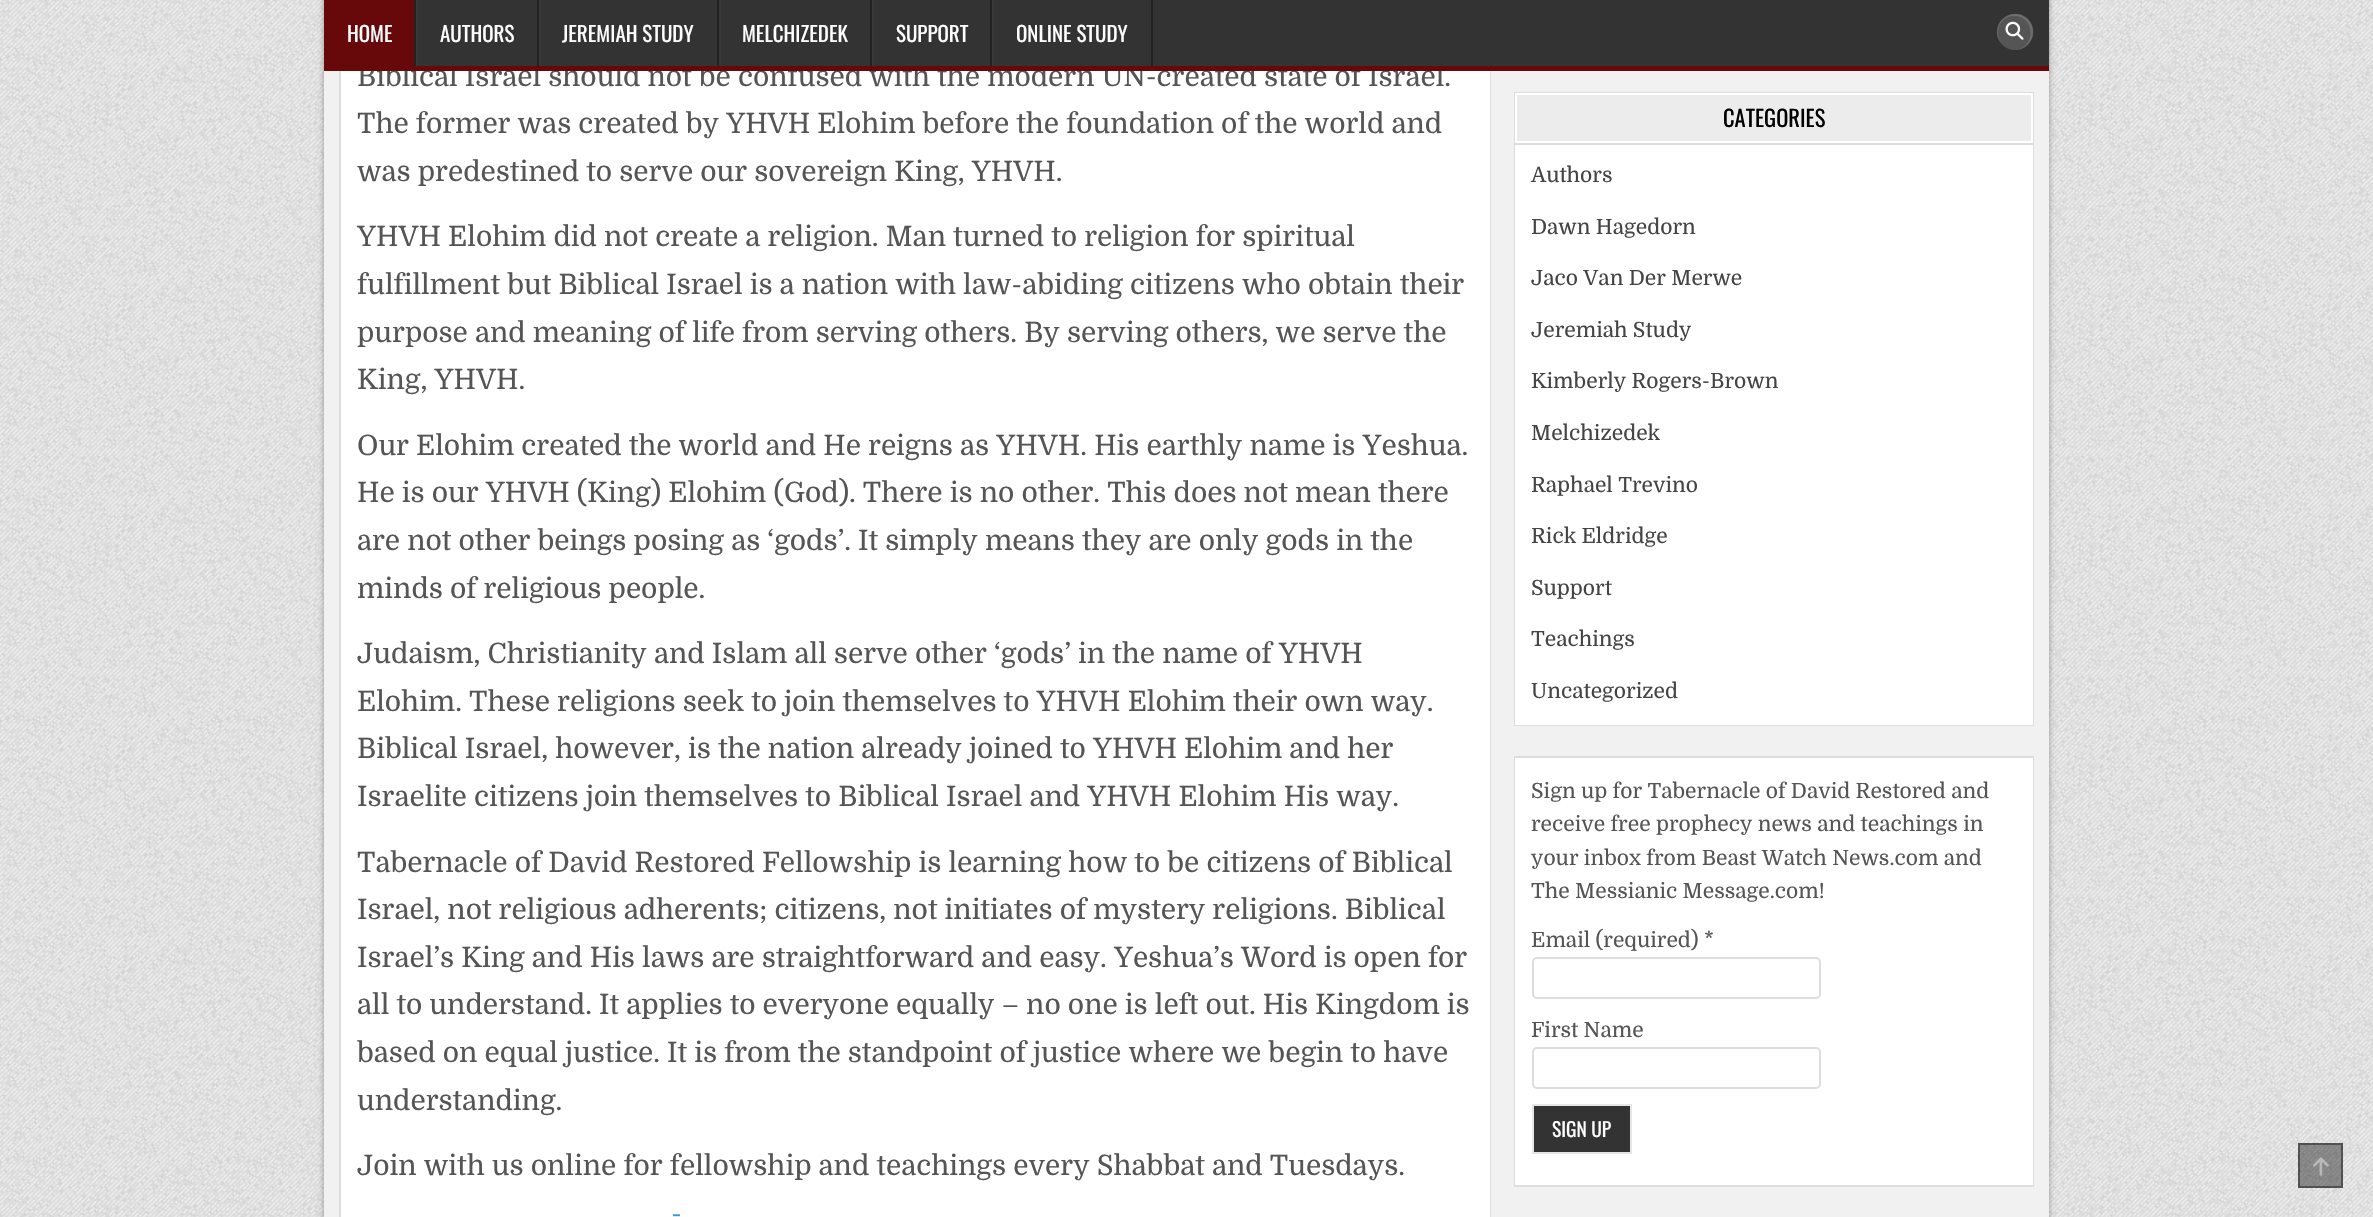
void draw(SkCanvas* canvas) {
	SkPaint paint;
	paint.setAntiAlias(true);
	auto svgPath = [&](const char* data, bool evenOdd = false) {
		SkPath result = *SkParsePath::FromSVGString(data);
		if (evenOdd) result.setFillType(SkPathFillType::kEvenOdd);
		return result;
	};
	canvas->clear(0xffffffff);
	canvas->drawImageRect(SkImages::DeferredFromEncodedData(SkData::MakeFromFileName("img1.png")), SkRect::MakeXYWH(0, 0, 2373, 1217), SkSamplingOptions());
	paint.setColor(0x59000000);
	paint.setMaskFilter(SkMaskFilter::MakeBlur(kNormal_SkBlurStyle, 3));
	canvas->drawRect(SkRect::MakeXYWH(324, -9, 1725, 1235), paint);
	paint.setMaskFilter(nullptr);
	paint.setColor(0xfff1f1f1);
	canvas->drawRect(SkRect::MakeXYWH(324, 71, 1725, 1146), paint);
	paint.setColor(0xffffffff);
	canvas->drawRect(SkRect::MakeXYWH(343, 71, 1145, 1146), paint);
	paint.setStroke(true);
	paint.setStrokeWidth(2);
	paint.setColor(0xffdddddd);
	canvas->drawRect(SkRect::MakeXYWH(340, -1, 1150, 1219), paint);
	paint.setColor(0xffffffff);
	canvas->drawRect(SkRect::MakeXYWH(342, -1, 1147, 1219), paint);
	SkFont f1(fontMgr->matchFamilyStyle("Domine", SkFontStyle::Normal()), 28);
	f1.setSubpixel(true);
	paint.setStroke(false);
	paint.setColor(0xff555555);
	canvas->drawString("Biblical Israel should not be confused with the modern UN-created state of Israel.", 357, 86, f1, paint);
	paint.setColor(0xff333333);
	canvas->drawRect(SkRect::MakeXYWH(418, 0, 1631, 66), paint);
	paint.setColor(0xff67080b);
	canvas->drawRect(SkRect::MakeXYWH(324, 66, 1725, 5), paint);
	canvas->drawRect(SkRect::MakeXYWH(324, 0, 90, 66), paint);
	paint.setColor(0xff222222);
	canvas->drawRect(SkRect::MakeXYWH(414, 0, 2, 66), paint);
	SkFont f2(fontMgr->matchFamilyStyle("Oswald", SkFontStyle::Normal()), 21);
	f2.setSubpixel(true);
	paint.setColor(0xffffffff);
	canvas->drawString("HOME", 347, 42, f2, paint);
	paint.setColor(0xff222222);
	canvas->drawRect(SkRect::MakeXYWH(537, 0, 2, 66), paint);
	paint.setColor(0xff383838);
	canvas->drawRect(SkRect::MakeXYWH(416, 0, 2, 66), paint);
	paint.setColor(0xffffffff);
	canvas->drawString("AUTHORS", 440, 42, f2, paint);
	paint.setColor(0xff222222);
	canvas->drawRect(SkRect::MakeXYWH(717, 0, 2, 66), paint);
	paint.setColor(0xff383838);
	canvas->drawRect(SkRect::MakeXYWH(539, 0, 2, 66), paint);
	paint.setColor(0xffffffff);
	canvas->drawString("JEREMIAH STUDY", 562, 42, f2, paint);
	paint.setColor(0xff222222);
	canvas->drawRect(SkRect::MakeXYWH(870, 0, 2, 66), paint);
	paint.setColor(0xff383838);
	canvas->drawRect(SkRect::MakeXYWH(719, 0, 2, 66), paint);
	paint.setColor(0xffffffff);
	canvas->drawString("MELCHIZEDEK", 742, 42, f2, paint);
	paint.setColor(0xff222222);
	canvas->drawRect(SkRect::MakeXYWH(990, 0, 2, 66), paint);
	paint.setColor(0xff383838);
	canvas->drawRect(SkRect::MakeXYWH(872, 0, 2, 66), paint);
	paint.setColor(0xffffffff);
	canvas->drawString("SUPPORT", 896, 42, f2, paint);
	paint.setColor(0xff222222);
	canvas->drawRect(SkRect::MakeXYWH(1151, 0, 2, 66), paint);
	paint.setColor(0xff383838);
	canvas->drawRect(SkRect::MakeXYWH(992, 0, 2, 66), paint);
	paint.setColor(0xffffffff);
	canvas->drawString("ONLINE STUDY", 1016, 42, f2, paint);
	paint.setColor(0xff555555);
	canvas->drawCircle(2015, 32, 18, paint);
	paint.setColor(0x24ffffff);
	canvas->drawPath(svgPath("M2014 16C2036 16 2036 49 2015 50C2021 50 2027 47 2030 42C2033 38 2034 33 2033 28C2028 7 1998 10 1997 32C1997 37 1999 41 2002 44C1994 35 1998 16 2014 16Z"), paint);
	canvas->drawImageRect(SkImages::DeferredFromEncodedData(SkData::MakeFromFileName("img2.png")), SkRect::MakeXYWH(2005, 21, 19, 19), SkSamplingOptions());
	paint.setColor(0xff555555);
	canvas->drawString("The former was created by YHVH Elohim before the foundation of the world and", 357, 133, f1, paint);
	canvas->drawString("was predestined to serve our sovereign King, YHVH.", 357, 181, f1, paint);
	canvas->drawString("YHVH Elohim did not create a religion. Man turned to religion for spiritual", 357, 246, f1, paint);
	canvas->drawString("fulfillment but Biblical Israel is a nation with law-abiding citizens who obtain their", 357, 294, f1, paint);
	canvas->drawString("purpose and meaning of life from serving others. By serving others, we serve the", 357, 342, f1, paint);
	canvas->drawString("King, YHVH.", 357, 389, f1, paint);
	canvas->drawString("Our Elohim created the world and He reigns as YHVH. His earthly name is Yeshua.", 357, 455, f1, paint);
	canvas->drawString("He is our YHVH (King) Elohim (God). There is no other. This does not mean there", 357, 502, f1, paint);
	canvas->drawString("are not other beings posing as ‘gods’. It simply means they are only gods in the", 357, 550, f1, paint);
	canvas->drawString("minds of religious people.", 357, 598, f1, paint);
	canvas->drawString("Judaism, Christianity and Islam all serve other ‘gods’ in the name of YHVH", 357, 663, f1, paint);
	canvas->drawString("Elohim. These religions seek to join themselves to YHVH Elohim their own way.", 357, 711, f1, paint);
	canvas->drawString("Biblical Israel, however, is the nation already joined to YHVH Elohim and her", 357, 758, f1, paint);
	canvas->drawString("Israelite citizens join themselves to Biblical Israel and YHVH Elohim His way.", 357, 806, f1, paint);
	canvas->drawString("Tabernacle of David Restored Fellowship is learning how to be citizens of Biblical", 357, 872, f1, paint);
	canvas->drawString("Israel, not religious adherents; citizens, not initiates of mystery religions. Biblical", 357, 919, f1, paint);
	canvas->drawString("Israel’s King and His laws are straightforward and easy. Yeshua’s Word is open for", 357, 967, f1, paint);
	canvas->drawString("all to understand. It applies to everyone equally – no one is left out. His Kingdom is", 357, 1014, f1, paint);
	canvas->drawString("based on equal justice. It is from the standpoint of justice where we begin to have", 357, 1062, f1, paint);
	canvas->drawString("understanding.", 357, 1110, f1, paint);
	canvas->drawString("Join with us online for fellowship and teachings every Shabbat and Tuesdays.", 357, 1175, f1, paint);
	paint.setColor(0xff409bd4);
	canvas->drawString("-", 671, 1223, f1, paint);
	paint.setColor(0xffffffff);
	canvas->drawRect(SkRect::MakeXYWH(1517, 145, 514, 578), paint);
	paint.setStroke(true);
	paint.setColor(0xffdddddd);
	canvas->drawRect(SkRect::MakeXYWH(1515, 93, 518, 632), paint);
	paint.setColor(0xffffffff);
	canvas->drawRect(SkRect::MakeXYWH(1516, 94, 516, 630), paint);
	paint.setStroke(false);
	paint.setColor(0xffdddddd);
	canvas->drawRect(SkRect::MakeXYWH(1515, 143, 518, 2), paint);
	paint.setColor(0xffececec);
	canvas->drawRect(SkRect::MakeXYWH(1516, 94, 516, 48), paint);
	paint.setStroke(true);
	paint.setColor(0xffffffff);
	canvas->drawRect(SkRect::MakeXYWH(1516, 94, 516, 48), paint);
	SkFont f3(fontMgr->matchFamilyStyle("Oswald", SkFontStyle::Normal()), 22.5);
	f3.setSubpixel(true);
	paint.setStroke(false);
	paint.setColor(0xff000000);
	canvas->drawString("CATEGORIES", 1723, 127, f3, paint);
	SkFont f4(fontMgr->matchFamilyStyle("Domine", SkFontStyle::Normal()), 21);
	f4.setSubpixel(true);
	paint.setColor(0xff444444);
	canvas->drawString("Authors", 1531, 182, f4, paint);
	canvas->drawString("Dawn Hagedorn", 1531, 234, f4, paint);
	canvas->drawString("Jaco Van Der Merwe", 1531, 285, f4, paint);
	canvas->drawString("Jeremiah Study", 1531, 337, f4, paint);
	canvas->drawString("Kimberly Rogers-Brown", 1531, 388, f4, paint);
	canvas->drawString("Melchizedek", 1531, 440, f4, paint);
	canvas->drawString("Raphael Trevino", 1531, 492, f4, paint);
	canvas->drawString("Rick Eldridge", 1531, 543, f4, paint);
	canvas->drawString("Support", 1531, 595, f4, paint);
	canvas->drawString("Teachings", 1531, 646, f4, paint);
	canvas->drawString("Uncategorized", 1531, 698, f4, paint);
	paint.setColor(0xffffffff);
	canvas->drawRect(SkRect::MakeXYWH(1517, 760, 514, 423), paint);
	paint.setStroke(true);
	paint.setColor(0xffdddddd);
	canvas->drawRect(SkRect::MakeXYWH(1515, 757, 518, 429), paint);
	paint.setColor(0xffffffff);
	canvas->drawRect(SkRect::MakeXYWH(1516, 759, 516, 425), paint);
	paint.setStroke(false);
	paint.setColor(0xff555555);
	canvas->drawString("Sign up for Tabernacle of David Restored and", 1531, 798, f4, paint);
	canvas->drawString("receive free prophecy news and teachings in", 1531, 831, f4, paint);
	canvas->drawString("your inbox from Beast Watch News.com and", 1531, 865, f4, paint);
	canvas->drawString("The Messianic Message.com!", 1531, 898, f4, paint);
	canvas->drawString("Email (required) *", 1531, 947, f4, paint);
	paint.setStroke(true);
	paint.setColor(0xffdddddd);
	canvas->drawRoundRect(SkRect::MakeXYWH(1533, 958, 287, 40), 4, 4, paint);
	paint.setStroke(false);
	paint.setColor(0xff555555);
	canvas->drawString("First Name", 1531, 1037, f4, paint);
	paint.setStroke(true);
	paint.setColor(0xffdddddd);
	canvas->drawRoundRect(SkRect::MakeXYWH(1533, 1048, 287, 40), 4, 4, paint);
	paint.setStroke(false);
	paint.setColor(0xff333333);
	canvas->drawRect(SkRect::MakeXYWH(1533, 1105, 98, 48), paint);
	paint.setStroke(true);
	paint.setColor(0xffe6e6e6);
	canvas->drawRect(SkRect::MakeXYWH(1533, 1105, 98, 48), paint);
	SkFont f5(fontMgr->matchFamilyStyle("Oswald", SkFontStyle::Normal()), 19.5);
	f5.setSubpixel(true);
	paint.setStroke(false);
	paint.setColor(0xffffffff);
	canvas->drawString("SIGN UP", 1552, 1137, f5, paint);
	paint.setColor(0x66000000);
	canvas->drawRect(SkRect::MakeXYWH(2298, 1143, 45, 45), paint);
	paint.setStroke(true);
	canvas->drawRect(SkRect::MakeXYWH(2299, 1144, 43, 43), paint);
	canvas->drawImageRect(SkImages::DeferredFromEncodedData(SkData::MakeFromFileName("img3.png")), SkRect::MakeXYWH(2313, 1157, 16, 19), SkSamplingOptions());
}
